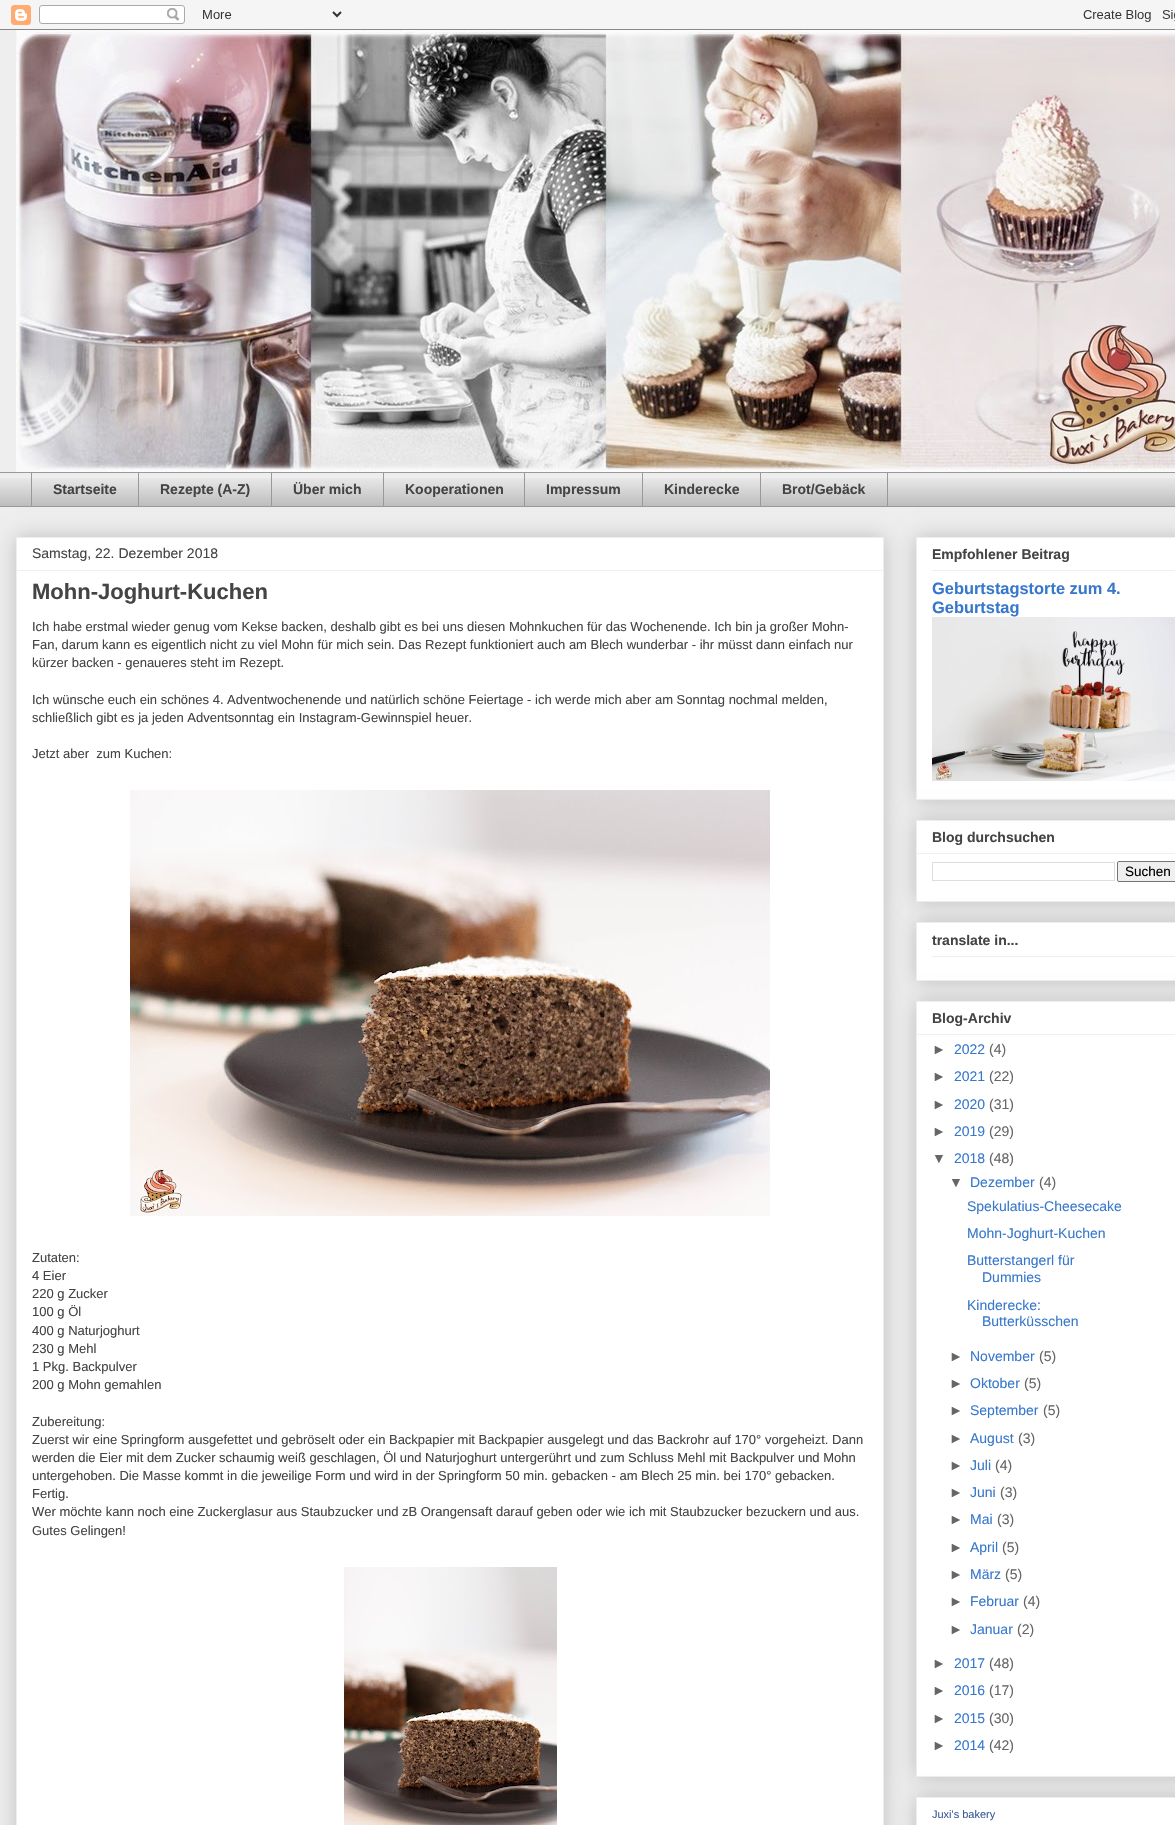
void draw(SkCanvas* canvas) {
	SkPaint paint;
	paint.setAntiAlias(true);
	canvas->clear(0xffeeeeee);
	canvas->drawImageRect(SkImages::DeferredFromEncodedData(SkData::MakeFromFileName("img1.png")), SkRect::MakeXYWH(0, 0, 1175, 30), SkSamplingOptions());
	canvas->drawImageRect(SkImages::DeferredFromEncodedData(SkData::MakeFromFileName("img2.png")), SkRect::MakeXYWH(16, 30, 1159, 442), SkSamplingOptions());
	canvas->drawImageRect(SkImages::DeferredFromEncodedData(SkData::MakeFromFileName("img3.png")), SkRect::MakeXYWH(0, 478, 1175, 28), SkSamplingOptions());
	paint.setColor(0xff999999);
	canvas->drawRect(SkRect::MakeXYWH(0, 472, 1175, 1), paint);
	canvas->drawRect(SkRect::MakeXYWH(31, 472, 1, 35), paint);
	SkFont f1(fontMgr->matchFamilyStyle("Liberation Sans", SkFontStyle::Bold()), 14);
	f1.setSubpixel(true);
	paint.setColor(0xff444444);
	canvas->drawString("Startseite", 53, 494, f1, paint);
	paint.setColor(0xff999999);
	canvas->drawRect(SkRect::MakeXYWH(138, 472, 1, 35), paint);
	paint.setColor(0xff444444);
	canvas->drawString("Rezepte (A-Z)", 160, 494, f1, paint);
	paint.setColor(0xff999999);
	canvas->drawRect(SkRect::MakeXYWH(271, 472, 1, 35), paint);
	paint.setColor(0xff444444);
	canvas->drawString("Über mich", 293, 494, f1, paint);
	paint.setColor(0xff999999);
	canvas->drawRect(SkRect::MakeXYWH(383, 472, 1, 35), paint);
	paint.setColor(0xff444444);
	canvas->drawString("Kooperationen", 405, 494, f1, paint);
	paint.setColor(0xff999999);
	canvas->drawRect(SkRect::MakeXYWH(524, 472, 1, 35), paint);
	paint.setColor(0xff444444);
	canvas->drawString("Impressum", 546, 494, f1, paint);
	paint.setColor(0xff999999);
	canvas->drawRect(SkRect::MakeXYWH(642, 472, 1, 35), paint);
	paint.setColor(0xff444444);
	canvas->drawString("Kinderecke", 664, 494, f1, paint);
	paint.setStroke(true);
	paint.setStrokeWidth(1);
	paint.setColor(0xff999999);
	canvas->drawRect(SkRect::MakeXYWH(760.5, 472.5, 127, 34), paint);
	paint.setStroke(false);
	paint.setColor(0xff444444);
	canvas->drawString("Brot/Gebäck", 782, 494, f1, paint);
	paint.setColor(0xff999999);
	canvas->drawRect(SkRect::MakeXYWH(0, 506, 1175, 1), paint);
	paint.setColor(0x33000000);
	paint.setMaskFilter(SkMaskFilter::MakeBlur(kNormal_SkBlurStyle, 10));
	canvas->drawRect(SkRect::MakeXYWH(16, 537, 868, 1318), paint);
	paint.setMaskFilter(nullptr);
	paint.setColor(0xffffffff);
	canvas->drawRect(SkRect::MakeXYWH(16.5, 537.5, 867, 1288), paint);
	paint.setStroke(true);
	paint.setColor(0xffeeeeee);
	canvas->drawRect(SkRect::MakeXYWH(16.5, 537.5, 867, 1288), paint);
	SkFont f2(fontMgr->matchFamilyStyle("Liberation Sans", SkFontStyle::Normal()), 14);
	f2.setSubpixel(true);
	paint.setStroke(false);
	paint.setColor(0xff444444);
	canvas->drawString("Samstag, 22. Dezember 2018", 32, 558, f2, paint);
	paint.setColor(0xffeeeeee);
	canvas->drawRect(SkRect::MakeXYWH(17, 570, 866, 1), paint);
	SkFont f3(fontMgr->matchFamilyStyle("Liberation Sans", SkFontStyle::Bold()), 22);
	f3.setSubpixel(true);
	paint.setColor(0xff444444);
	canvas->drawString("Mohn-Joghurt-Kuchen", 32, 599, f3, paint);
	SkFont f4(fontMgr->matchFamilyStyle("Liberation Sans", SkFontStyle::Normal()), 13);
	f4.setSubpixel(true);
	canvas->drawString("Ich habe erstmal wieder genug vom Kekse backen, deshalb gibt es bei uns diesen Mohnkuchen für das Wochenende. Ich bin ja großer Mohn-", 32, 631, f4, paint);
	canvas->drawString("Fan, darum kann es eigentlich nicht zu viel Mohn für mich sein. Das Rezept funktioniert auch am Blech wunderbar - ihr müsst dann einfach nur", 32, 649, f4, paint);
	canvas->drawString("kürzer backen - genaueres steht im Rezept.", 32, 667, f4, paint);
	canvas->drawString("Ich wünsche euch ein schönes 4. Adventwochenende und natürlich schöne Feiertage - ich werde mich aber am Sonntag nochmal melden,", 32, 704, f4, paint);
	canvas->drawString("schließlich gibt es ja jeden Adventsonntag ein Instagram-Gewinnspiel heuer.", 32, 722, f4, paint);
	canvas->drawString("Jetzt aber  zum Kuchen:", 32, 758, f4, paint);
	canvas->drawImageRect(SkImages::DeferredFromEncodedData(SkData::MakeFromFileName("img4.png")), SkRect::MakeXYWH(130, 790, 640, 426), SkSamplingOptions());
	canvas->drawString("Zutaten:", 32, 1262, f4, paint);
	canvas->drawString("4 Eier", 32, 1280, f4, paint);
	canvas->drawString("220 g Zucker", 32, 1298, f4, paint);
	canvas->drawString("100 g Öl", 32, 1316, f4, paint);
	canvas->drawString("400 g Naturjoghurt", 32, 1335, f4, paint);
	canvas->drawString("230 g Mehl", 32, 1353, f4, paint);
	canvas->drawString("1 Pkg. Backpulver", 32, 1371, f4, paint);
	canvas->drawString("200 g Mohn gemahlen", 32, 1389, f4, paint);
	canvas->drawString("Zubereitung:", 32, 1426, f4, paint);
	canvas->drawString("Zuerst wir eine Springform ausgefettet und gebröselt oder ein Backpapier mit Backpapier ausgelegt und das Backrohr auf 170° vorgeheizt. Dann", 32, 1444, f4, paint);
	canvas->drawString("werden die Eier mit dem Zucker schaumig weiß geschlagen, Öl und Naturjoghurt untergerührt und zum Schluss Mehl mit Backpulver und Mohn", 32, 1462, f4, paint);
	canvas->drawString("untergehoben. Die Masse kommt in die jeweilige Form und wird in der Springform 50 min. gebacken - am Blech 25 min. bei 170° gebacken.", 32, 1480, f4, paint);
	canvas->drawString("Fertig.", 32, 1498, f4, paint);
	canvas->drawString("Wer möchte kann noch eine Zuckerglasur aus Staubzucker und zB Orangensaft darauf geben oder wie ich mit Staubzucker bezuckern und aus.", 32, 1516, f4, paint);
	canvas->drawString("Gutes Gelingen!", 32, 1535, f4, paint);
	canvas->drawImageRect(SkImages::DeferredFromEncodedData(SkData::MakeFromFileName("img5.png")), SkRect::MakeXYWH(344, 1567, 213, 258), SkSamplingOptions());
	paint.setColor(0x33000000);
	paint.setMaskFilter(SkMaskFilter::MakeBlur(kNormal_SkBlurStyle, 10));
	canvas->drawRect(SkRect::MakeXYWH(916, 537, 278, 263), paint);
	paint.setMaskFilter(nullptr);
	paint.setColor(0xffffffff);
	canvas->drawRect(SkRect::MakeXYWH(916.5, 537.5, 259, 262), paint);
	paint.setStroke(true);
	paint.setColor(0xffeeeeee);
	canvas->drawRect(SkRect::MakeXYWH(916.5, 537.5, 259, 262), paint);
	paint.setStroke(false);
	paint.setColor(0xff444444);
	canvas->drawString("Empfohlener Beitrag", 932, 559, f1, paint);
	paint.setColor(0xffeeeeee);
	canvas->drawRect(SkRect::MakeXYWH(932, 570, 243, 1), paint);
	SkFont f5(fontMgr->matchFamilyStyle("Liberation Sans", SkFontStyle::Bold()), 16.4);
	f5.setSubpixel(true);
	paint.setColor(0xff3778cd);
	canvas->drawString("Geburtstagstorte zum 4.", 932, 594, f5, paint);
	canvas->drawString("Geburtstag", 932, 613, f5, paint);
	canvas->drawImageRect(SkImages::DeferredFromEncodedData(SkData::MakeFromFileName("img6.png")), SkRect::MakeXYWH(932, 617, 243, 164), SkSamplingOptions());
	paint.setColor(0x33000000);
	paint.setMaskFilter(SkMaskFilter::MakeBlur(kNormal_SkBlurStyle, 10));
	canvas->drawRect(SkRect::MakeXYWH(916, 820, 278, 82), paint);
	paint.setMaskFilter(nullptr);
	paint.setColor(0xffffffff);
	canvas->drawRect(SkRect::MakeXYWH(916.5, 820.5, 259, 81), paint);
	paint.setStroke(true);
	paint.setColor(0xffeeeeee);
	canvas->drawRect(SkRect::MakeXYWH(916.5, 820.5, 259, 81), paint);
	paint.setStroke(false);
	paint.setColor(0xff444444);
	canvas->drawString("Blog durchsuchen", 932, 842, f1, paint);
	paint.setColor(0xffeeeeee);
	canvas->drawRect(SkRect::MakeXYWH(917, 853, 258, 1), paint);
	paint.setStroke(true);
	paint.setColor(0xffdddddd);
	canvas->drawRect(SkRect::MakeXYWH(932.5, 862.5, 182, 18), paint);
	paint.setStroke(false);
	paint.setColor(0xffefefef);
	canvas->drawRoundRect(SkRect::MakeXYWH(1117.5, 861.5, 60, 20), 1.5, 1.5, paint);
	paint.setStroke(true);
	paint.setColor(0xff767676);
	canvas->drawRoundRect(SkRect::MakeXYWH(1117.5, 861.5, 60, 20), 1.5, 1.5, paint);
	SkFont f6(fontMgr->matchFamilyStyle("Liberation Sans", SkFontStyle::Normal()), 13.5);
	f6.setSubpixel(true);
	paint.setStroke(false);
	paint.setColor(0xff000000);
	canvas->drawString("Suchen", 1125, 876, f6, paint);
	paint.setColor(0x33000000);
	paint.setMaskFilter(SkMaskFilter::MakeBlur(kNormal_SkBlurStyle, 10));
	canvas->drawRect(SkRect::MakeXYWH(916, 922, 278, 59), paint);
	paint.setMaskFilter(nullptr);
	paint.setColor(0xffffffff);
	canvas->drawRect(SkRect::MakeXYWH(916.5, 922.5, 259, 58), paint);
	paint.setStroke(true);
	paint.setColor(0xffeeeeee);
	canvas->drawRect(SkRect::MakeXYWH(916.5, 922.5, 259, 58), paint);
	paint.setStroke(false);
	paint.setColor(0xff444444);
	canvas->drawString("translate in...", 932, 945, f1, paint);
	paint.setColor(0xffeeeeee);
	canvas->drawRect(SkRect::MakeXYWH(932, 956, 243, 1), paint);
	paint.setColor(0x33000000);
	paint.setMaskFilter(SkMaskFilter::MakeBlur(kNormal_SkBlurStyle, 10));
	canvas->drawRect(SkRect::MakeXYWH(916, 1001, 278, 776), paint);
	paint.setMaskFilter(nullptr);
	paint.setColor(0xffffffff);
	canvas->drawRect(SkRect::MakeXYWH(916.5, 1001.5, 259, 775), paint);
	paint.setStroke(true);
	paint.setColor(0xffeeeeee);
	canvas->drawRect(SkRect::MakeXYWH(916.5, 1001.5, 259, 775), paint);
	paint.setStroke(false);
	paint.setColor(0xff444444);
	canvas->drawString("Blog-Archiv", 932, 1023, f1, paint);
	paint.setColor(0xffeeeeee);
	canvas->drawRect(SkRect::MakeXYWH(917, 1034, 258, 1), paint);
	paint.setColor(0xff666666);
	canvas->drawString("►", 932, 1054, f2, paint);
	paint.setColor(0xff3778cd);
	canvas->drawString("2022", 954, 1054, f2, paint);
	paint.setColor(0xff666666);
	canvas->drawString("(4)", 989, 1054, f2, paint);
	canvas->drawString("►", 932, 1081, f2, paint);
	paint.setColor(0xff3778cd);
	canvas->drawString("2021", 954, 1081, f2, paint);
	paint.setColor(0xff666666);
	canvas->drawString("(22)", 989, 1081, f2, paint);
	canvas->drawString("►", 932, 1109, f2, paint);
	paint.setColor(0xff3778cd);
	canvas->drawString("2020", 954, 1109, f2, paint);
	paint.setColor(0xff666666);
	canvas->drawString("(31)", 989, 1109, f2, paint);
	canvas->drawString("►", 932, 1136, f2, paint);
	paint.setColor(0xff3778cd);
	canvas->drawString("2019", 954, 1136, f2, paint);
	paint.setColor(0xff666666);
	canvas->drawString("(29)", 989, 1136, f2, paint);
	canvas->drawString("▼", 932, 1163, f2, paint);
	paint.setColor(0xff3778cd);
	canvas->drawString("2018", 954, 1163, f2, paint);
	paint.setColor(0xff666666);
	canvas->drawString("(48)", 989, 1163, f2, paint);
	canvas->drawString("▼", 949, 1187, f2, paint);
	paint.setColor(0xff3778cd);
	canvas->drawString("Dezember", 970, 1187, f2, paint);
	paint.setColor(0xff666666);
	canvas->drawString("(4)", 1039, 1187, f2, paint);
	paint.setColor(0xff3778cd);
	canvas->drawString("Spekulatius-Cheesecake", 967, 1211, f2, paint);
	canvas->drawString("Mohn-Joghurt-Kuchen", 967, 1238, f2, paint);
	canvas->drawString("Butterstangerl für", 967, 1265, f2, paint);
	canvas->drawString("Dummies", 982, 1282, f2, paint);
	canvas->drawString("Kinderecke:", 967, 1310, f2, paint);
	canvas->drawString("Butterküsschen", 982, 1326, f2, paint);
	paint.setColor(0xff666666);
	canvas->drawString("►", 949, 1361, f2, paint);
	paint.setColor(0xff3778cd);
	canvas->drawString("November", 970, 1361, f2, paint);
	paint.setColor(0xff666666);
	canvas->drawString("(5)", 1039, 1361, f2, paint);
	canvas->drawString("►", 949, 1388, f2, paint);
	paint.setColor(0xff3778cd);
	canvas->drawString("Oktober", 970, 1388, f2, paint);
	paint.setColor(0xff666666);
	canvas->drawString("(5)", 1024, 1388, f2, paint);
	canvas->drawString("►", 949, 1415, f2, paint);
	paint.setColor(0xff3778cd);
	canvas->drawString("September", 970, 1415, f2, paint);
	paint.setColor(0xff666666);
	canvas->drawString("(5)", 1043, 1415, f2, paint);
	canvas->drawString("►", 949, 1443, f2, paint);
	paint.setColor(0xff3778cd);
	canvas->drawString("August", 970, 1443, f2, paint);
	paint.setColor(0xff666666);
	canvas->drawString("(3)", 1018, 1443, f2, paint);
	canvas->drawString("►", 949, 1470, f2, paint);
	paint.setColor(0xff3778cd);
	canvas->drawString("Juli", 970, 1470, f2, paint);
	paint.setColor(0xff666666);
	canvas->drawString("(4)", 995, 1470, f2, paint);
	canvas->drawString("►", 949, 1497, f2, paint);
	paint.setColor(0xff3778cd);
	canvas->drawString("Juni", 970, 1497, f2, paint);
	paint.setColor(0xff666666);
	canvas->drawString("(3)", 1000, 1497, f2, paint);
	canvas->drawString("►", 949, 1524, f2, paint);
	paint.setColor(0xff3778cd);
	canvas->drawString("Mai", 970, 1524, f2, paint);
	paint.setColor(0xff666666);
	canvas->drawString("(3)", 997, 1524, f2, paint);
	canvas->drawString("►", 949, 1552, f2, paint);
	paint.setColor(0xff3778cd);
	canvas->drawString("April", 970, 1552, f2, paint);
	paint.setColor(0xff666666);
	canvas->drawString("(5)", 1002, 1552, f2, paint);
	canvas->drawString("►", 949, 1579, f2, paint);
	paint.setColor(0xff3778cd);
	canvas->drawString("März", 970, 1579, f2, paint);
	paint.setColor(0xff666666);
	canvas->drawString("(5)", 1005, 1579, f2, paint);
	canvas->drawString("►", 949, 1606, f2, paint);
	paint.setColor(0xff3778cd);
	canvas->drawString("Februar", 970, 1606, f2, paint);
	paint.setColor(0xff666666);
	canvas->drawString("(4)", 1023, 1606, f2, paint);
	canvas->drawString("►", 949, 1634, f2, paint);
	paint.setColor(0xff3778cd);
	canvas->drawString("Januar", 970, 1634, f2, paint);
	paint.setColor(0xff666666);
	canvas->drawString("(2)", 1017, 1634, f2, paint);
	canvas->drawString("►", 932, 1668, f2, paint);
	paint.setColor(0xff3778cd);
	canvas->drawString("2017", 954, 1668, f2, paint);
	paint.setColor(0xff666666);
	canvas->drawString("(48)", 989, 1668, f2, paint);
	canvas->drawString("►", 932, 1695, f2, paint);
	paint.setColor(0xff3778cd);
	canvas->drawString("2016", 954, 1695, f2, paint);
	paint.setColor(0xff666666);
	canvas->drawString("(17)", 989, 1695, f2, paint);
	canvas->drawString("►", 932, 1723, f2, paint);
	paint.setColor(0xff3778cd);
	canvas->drawString("2015", 954, 1723, f2, paint);
	paint.setColor(0xff666666);
	canvas->drawString("(30)", 989, 1723, f2, paint);
	canvas->drawString("►", 932, 1750, f2, paint);
	paint.setColor(0xff3778cd);
	canvas->drawString("2014", 954, 1750, f2, paint);
	paint.setColor(0xff666666);
	canvas->drawString("(42)", 989, 1750, f2, paint);
	paint.setColor(0x33000000);
	paint.setMaskFilter(SkMaskFilter::MakeBlur(kNormal_SkBlurStyle, 10));
	canvas->drawRect(SkRect::MakeXYWH(916, 1797, 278, 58), paint);
	paint.setMaskFilter(nullptr);
	paint.setColor(0xffffffff);
	canvas->drawRect(SkRect::MakeXYWH(916.5, 1797.5, 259, 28), paint);
	paint.setStroke(true);
	paint.setColor(0xffeeeeee);
	canvas->drawRect(SkRect::MakeXYWH(916.5, 1797.5, 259, 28), paint);
	SkFont f7(fontMgr->matchFamilyStyle("Liberation Sans", SkFontStyle::Normal()), 11);
	f7.setSubpixel(true);
	paint.setStroke(false);
	paint.setColor(0xff3b5998);
	canvas->drawString("Juxi's bakery", 932, 1818, f7, paint);
}
